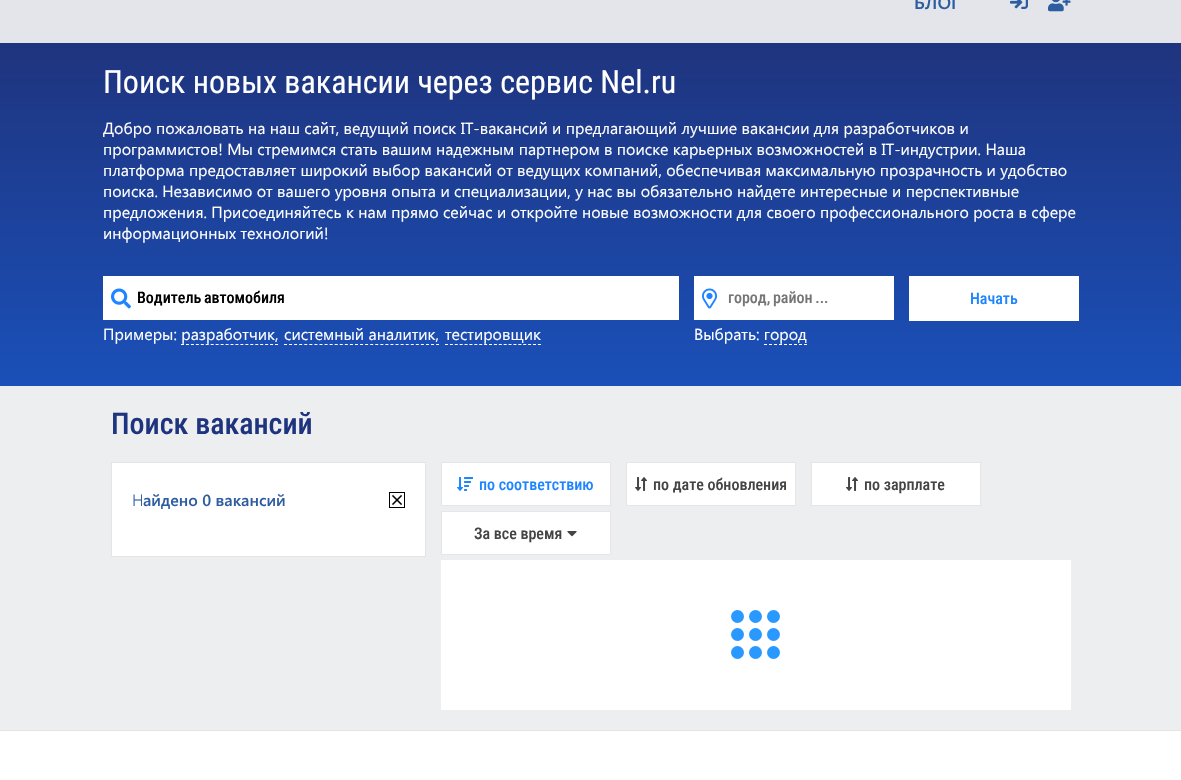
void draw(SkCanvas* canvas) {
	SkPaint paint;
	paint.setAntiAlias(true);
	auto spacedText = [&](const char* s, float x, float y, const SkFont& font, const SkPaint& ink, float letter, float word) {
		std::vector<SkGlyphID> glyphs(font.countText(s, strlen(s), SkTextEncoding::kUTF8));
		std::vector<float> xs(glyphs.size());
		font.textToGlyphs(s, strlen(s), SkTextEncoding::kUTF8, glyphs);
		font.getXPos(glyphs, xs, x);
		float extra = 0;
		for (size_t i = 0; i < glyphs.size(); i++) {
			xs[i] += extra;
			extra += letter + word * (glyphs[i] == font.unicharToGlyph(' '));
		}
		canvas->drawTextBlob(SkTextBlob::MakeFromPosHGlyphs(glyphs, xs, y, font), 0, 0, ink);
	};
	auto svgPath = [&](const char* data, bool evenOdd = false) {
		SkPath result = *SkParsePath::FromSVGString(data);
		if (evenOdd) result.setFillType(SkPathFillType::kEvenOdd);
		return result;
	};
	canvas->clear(0xffffffff);
	paint.setColor(0xffe3e5ea);
	canvas->drawRect(SkRect::MakeXYWH(0, 0, 1181, 42), paint);
	paint.setColor(0xffe4e4e4);
	canvas->drawRect(SkRect::MakeXYWH(0, 42, 1181, 1), paint);
	SkFont f1(fontMgr->matchFamilyStyle("Segoe UI", SkFontStyle(600, SkFontStyle::kNormal_Width, SkFontStyle::kUpright_Slant)), 18);
	f1.setSubpixel(true);
	paint.setColor(0xff2e5ca1);
	canvas->drawString("БЛОГ", 914, 9, f1, paint);
	canvas->drawImageRect(SkImages::DeferredFromEncodedData(SkData::MakeFromFileName("img1.png")), SkRect::MakeXYWH(1010, 0, 18, 9), SkSamplingOptions());
	canvas->drawImageRect(SkImages::DeferredFromEncodedData(SkData::MakeFromFileName("img2.png")), SkRect::MakeXYWH(1048, 0, 23, 12), SkSamplingOptions());
	paint.setColor(0xffedeef0);
	canvas->drawRect(SkRect::MakeXYWH(0, 386, 1181, 344), paint);
	{
		const SkColor colors[] = {0xff1f347e, 0xff1a50b9};
		const float stops[] = {0, 1};
		const SkPoint ends[] = {{591, 43}, {591, 386}};
		paint.setShader(SkGradientShader::MakeLinear(ends, colors, stops, 2, SkTileMode::kClamp));
		paint.setAlpha(255);
	}
	canvas->drawRect(SkRect::MakeXYWH(0, 43, 1181, 343), paint);
	SkFont f2(fontMgr->matchFamilyStyle("Roboto Condensed", SkFontStyle::Normal()), 32);
	f2.setSubpixel(true);
	paint.setShader(nullptr);
	paint.setColor(0xffffffff);
	canvas->drawString("Поиск новых вакансии через сервис Nel.ru", 103, 93, f2, paint);
	SkFont f3(fontMgr->matchFamilyStyle("Segoe UI", SkFontStyle::Normal()), 16);
	f3.setSubpixel(true);
	canvas->drawString("Добро пожаловать на наш сайт, ведущий поиск IT-вакансий и предлагающий лучшие вакансии для разработчиков и", 103, 134, f3, paint);
	canvas->drawString("программистов! Мы стремимся стать вашим надежным партнером в поиске карьерных возможностей в IT-индустрии. Наша", 103, 155, f3, paint);
	canvas->drawString("платформа предоставляет широкий выбор вакансий от ведущих компаний, обеспечивая максимальную прозрачность и удобство", 103, 176, f3, paint);
	canvas->drawString("поиска. Независимо от вашего уровня опыта и специализации, у нас вы обязательно найдете интересные и перспективные", 103, 197, f3, paint);
	canvas->drawString("предложения. Присоединяйтесь к нам прямо сейчас и откройте новые возможности для своего профессионального роста в сфере", 103, 218, f3, paint);
	canvas->drawString("информационных технологий!", 103, 239, f3, paint);
	canvas->drawRect(SkRect::MakeXYWH(103, 276, 576, 44), paint);
	canvas->drawImageRect(SkImages::DeferredFromEncodedData(SkData::MakeFromFileName("img3.png")), SkRect::MakeXYWH(111, 288, 20, 21), SkSamplingOptions());
	SkFont f4(fontMgr->matchFamilyStyle("Roboto Condensed", SkFontStyle(500, SkFontStyle::kNormal_Width, SkFontStyle::kUpright_Slant)), 16);
	f4.setSubpixel(true);
	paint.setColor(0xff000000);
	spacedText("Водитель автомобиля", 137, 303, f4, paint, 0, -1);
	paint.setColor(0xffffffff);
	canvas->drawString("Примеры: разработчик,", 103, 340, f3, paint);
	canvas->drawString("системный аналитик,", 284, 340, f3, paint);
	paint.setStroke(true);
	paint.setStrokeWidth(1);
	paint.setPathEffect(SkDashPathEffect::Make({{3, 2.07f}}, 0));
	canvas->drawPath(svgPath("M284 344.5H439"), paint);
	paint.setPathEffect(nullptr);
	paint.setStroke(false);
	canvas->drawString("тестировщик", 445, 340, f3, paint);
	paint.setStroke(true);
	paint.setPathEffect(SkDashPathEffect::Make({{3, 1.89f}}, 0));
	canvas->drawPath(svgPath("M445 344.5H541"), paint);
	paint.setPathEffect(nullptr);
	paint.setPathEffect(SkDashPathEffect::Make({{3, 1.95f}}, 0));
	canvas->drawPath(svgPath("M181 344.5H278"), paint);
	paint.setPathEffect(nullptr);
	paint.setStroke(false);
	canvas->drawRect(SkRect::MakeXYWH(694, 276, 200, 44), paint);
	canvas->drawImageRect(SkImages::DeferredFromEncodedData(SkData::MakeFromFileName("img4.png")), SkRect::MakeXYWH(702, 288, 15, 21), SkSamplingOptions());
	paint.setColor(0xff757575);
	spacedText("город, район ...", 728, 303, f4, paint, 0, -1);
	paint.setColor(0xffffffff);
	canvas->drawString("Выбрать: город", 694, 340, f3, paint);
	paint.setStroke(true);
	paint.setPathEffect(SkDashPathEffect::Make({{3, 2}}, 0));
	canvas->drawPath(svgPath("M764 344.5H807"), paint);
	paint.setPathEffect(nullptr);
	paint.setStroke(false);
	canvas->drawRect(SkRect::MakeXYWH(909, 276, 170, 45), paint);
	paint.setColor(0xff1d85ff);
	canvas->drawString("Начать", 970, 304, f4, paint);
	SkFont f5(fontMgr->matchFamilyStyle("Roboto Condensed", SkFontStyle(500, SkFontStyle::kNormal_Width, SkFontStyle::kUpright_Slant)), 30);
	f5.setSubpixel(true);
	paint.setColor(0xff1f347e);
	canvas->drawString("Поиск вакансий", 111, 434, f5, paint);
	paint.setColor(0xffffffff);
	canvas->drawRect(SkRect::MakeXYWH(111.5, 462.5, 314, 94), paint);
	paint.setStroke(true);
	paint.setColor(0xffe4e4e4);
	canvas->drawRect(SkRect::MakeXYWH(111.5, 462.5, 314, 94), paint);
	SkFont f6(fontMgr->matchFamilyStyle("Noto Sans", SkFontStyle(300, SkFontStyle::kNormal_Width, SkFontStyle::kUpright_Slant)), 16);
	f6.setSubpixel(true);
	paint.setStroke(false);
	paint.setColor(0xff2e5ca1);
	canvas->drawString("Н", 132, 506, f6, paint);
	SkFont f7(fontMgr->matchFamilyStyle("Segoe UI", SkFontStyle(600, SkFontStyle::kNormal_Width, SkFontStyle::kUpright_Slant)), 16);
	f7.setSubpixel(true);
	canvas->drawString("айдено 0 вакансий", 143, 506, f7, paint);
	paint.setStroke(true);
	paint.setColor(0xff000000);
	canvas->drawRect(SkRect::MakeXYWH(389.5, 492.5, 15, 15), paint);
	canvas->drawImageRect(SkImages::DeferredFromEncodedData(SkData::MakeFromFileName("img5.png")), SkRect::MakeXYWH(392, 495, 10, 10), SkSamplingOptions());
	paint.setStroke(false);
	paint.setColor(0xffffffff);
	canvas->drawRect(SkRect::MakeXYWH(441.5, 462.5, 169, 43), paint);
	paint.setStroke(true);
	paint.setColor(0xffe6e6e6);
	canvas->drawRect(SkRect::MakeXYWH(441.5, 462.5, 169, 43), paint);
	canvas->drawImageRect(SkImages::DeferredFromEncodedData(SkData::MakeFromFileName("img6.png")), SkRect::MakeXYWH(457, 477, 16, 14), SkSamplingOptions());
	paint.setStroke(false);
	paint.setColor(0xff1d85ff);
	canvas->drawString("по соответствию", 479, 490, f4, paint);
	paint.setColor(0xffffffff);
	canvas->drawRect(SkRect::MakeXYWH(626.5, 462.5, 169, 43), paint);
	paint.setStroke(true);
	paint.setColor(0xffe6e6e6);
	canvas->drawRect(SkRect::MakeXYWH(626.5, 462.5, 169, 43), paint);
	canvas->drawImageRect(SkImages::DeferredFromEncodedData(SkData::MakeFromFileName("img7.png")), SkRect::MakeXYWH(635, 477, 12, 14), SkSamplingOptions());
	paint.setStroke(false);
	paint.setColor(0xff444444);
	canvas->drawString("по дате обновления", 653, 490, f4, paint);
	paint.setColor(0xffffffff);
	canvas->drawRect(SkRect::MakeXYWH(811.5, 462.5, 169, 43), paint);
	paint.setStroke(true);
	paint.setColor(0xffe6e6e6);
	canvas->drawRect(SkRect::MakeXYWH(811.5, 462.5, 169, 43), paint);
	canvas->drawImageRect(SkImages::DeferredFromEncodedData(SkData::MakeFromFileName("img7.png")), SkRect::MakeXYWH(846, 477, 12, 14), SkSamplingOptions());
	paint.setStroke(false);
	paint.setColor(0xff444444);
	canvas->drawString("по зарплате", 864, 490, f4, paint);
	paint.setColor(0xffffffff);
	canvas->drawRect(SkRect::MakeXYWH(441.5, 511.5, 169, 43), paint);
	paint.setStroke(true);
	paint.setColor(0xffe6e6e6);
	canvas->drawRect(SkRect::MakeXYWH(441.5, 511.5, 169, 43), paint);
	paint.setStroke(false);
	paint.setColor(0xff444444);
	canvas->drawString("За все время", 474, 539, f4, paint);
	canvas->drawImageRect(SkImages::DeferredFromEncodedData(SkData::MakeFromFileName("img8.png")), SkRect::MakeXYWH(567, 531, 10, 6), SkSamplingOptions());
	paint.setColor(0xffffffff);
	canvas->drawRect(SkRect::MakeXYWH(441, 560, 630, 150), paint);
	paint.setColor(0xff2a99ff);
	canvas->drawCircle(737.5, 616.5, 6.5, paint);
	canvas->drawCircle(755.5, 616.5, 6.5, paint);
	canvas->drawCircle(773.5, 616.5, 6.5, paint);
	canvas->drawCircle(737.5, 634.5, 6.5, paint);
	canvas->drawCircle(755.5, 634.5, 6.5, paint);
	canvas->drawCircle(773.5, 634.5, 6.5, paint);
	canvas->drawCircle(737.5, 652.5, 6.5, paint);
	canvas->drawCircle(755.5, 652.5, 6.5, paint);
	canvas->drawCircle(773.5, 652.5, 6.5, paint);
	paint.setColor(0xffe4e4e4);
	canvas->drawRect(SkRect::MakeXYWH(0, 730, 1181, 1), paint);
}
